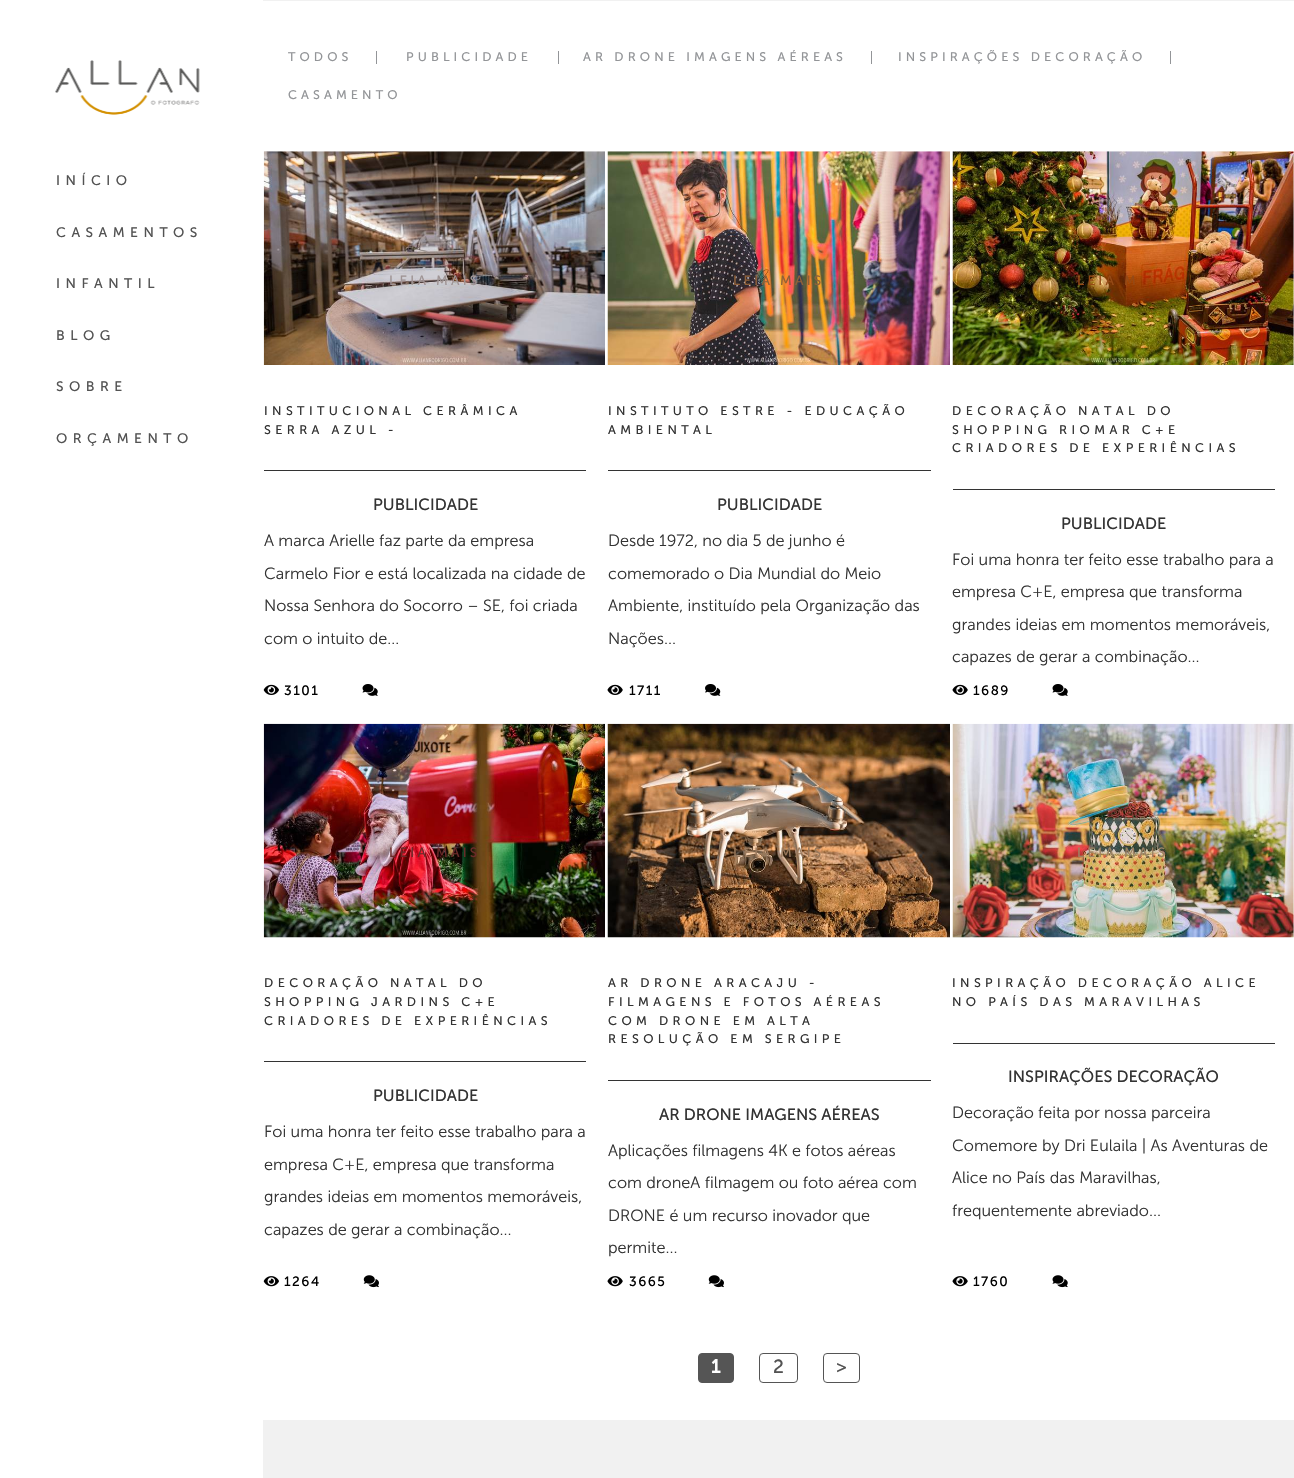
void draw(SkCanvas* canvas) {
	SkPaint paint;
	paint.setAntiAlias(true);
	auto spacedText = [&](const char* s, float x, float y, const SkFont& font, const SkPaint& ink, float letter, float word) {
		std::vector<SkGlyphID> glyphs(font.countText(s, strlen(s), SkTextEncoding::kUTF8));
		std::vector<float> xs(glyphs.size());
		font.textToGlyphs(s, strlen(s), SkTextEncoding::kUTF8, glyphs);
		font.getXPos(glyphs, xs, x);
		float extra = 0;
		for (size_t i = 0; i < glyphs.size(); i++) {
			xs[i] += extra;
			extra += letter + word * (glyphs[i] == font.unicharToGlyph(' '));
		}
		canvas->drawTextBlob(SkTextBlob::MakeFromPosHGlyphs(glyphs, xs, y, font), 0, 0, ink);
	};
	canvas->clear(0xffffffff);
	canvas->drawImageRect(SkImages::DeferredFromEncodedData(SkData::MakeFromFileName("img1.png")), SkRect::MakeXYWH(55, 60, 145, 55), SkSamplingOptions());
	SkFont f1(fontMgr->matchFamilyStyle("Museo Sans", SkFontStyle::Normal()), 13.75);
	f1.setSubpixel(true);
	paint.setColor(0xff535353);
	spacedText("INÍCIO", 56, 185, f1, paint, 5.5, 0);
	spacedText("CASAMENTOS", 56, 237, f1, paint, 5.5, 0);
	spacedText("INFANTIL", 56, 288, f1, paint, 5.5, 0);
	spacedText("BLOG", 56, 340, f1, paint, 5.5, 0);
	spacedText("SOBRE", 56, 391, f1, paint, 5.5, 0);
	spacedText("ORÇAMENTO", 56, 443, f1, paint, 5.5, 0);
	paint.setColor(0xfff1f1f1);
	canvas->drawRect(SkRect::MakeXYWH(263, 0, 1031, 1), paint);
	paint.setColor(0xff939598);
	canvas->drawRect(SkRect::MakeXYWH(376, 51, 1, 13), paint);
	SkFont f2(fontMgr->matchFamilyStyle("Museo Sans", SkFontStyle::Normal()), 12.5);
	f2.setSubpixel(true);
	spacedText("TODOS", 288, 61, f2, paint, 4.1, 0);
	canvas->drawRect(SkRect::MakeXYWH(558, 51, 1, 13), paint);
	spacedText("PUBLICIDADE", 406, 61, f2, paint, 4.1, 0);
	canvas->drawRect(SkRect::MakeXYWH(871, 51, 1, 13), paint);
	spacedText("AR DRONE IMAGENS AÉREAS", 583, 61, f2, paint, 4.1, 0);
	canvas->drawRect(SkRect::MakeXYWH(1170, 51, 1, 13), paint);
	spacedText("INSPIRAÇÕES DECORAÇÃO", 898, 61, f2, paint, 4.1, 0);
	spacedText("CASAMENTO", 288, 99, f2, paint, 4.1, 0);
	canvas->drawImageRect(SkImages::DeferredFromEncodedData(SkData::MakeFromFileName("img2.png")), SkRect::MakeXYWH(263, 151, 342, 214), SkSamplingOptions());
	SkFont f3(fontMgr->matchFamilyStyle("Museo Sans", SkFontStyle::Normal()), 13.5);
	f3.setSubpixel(true);
	paint.setColor(0xff9f9494);
	spacedText("LEIA MAIS", 389, 285, f3, paint, 3.25, 0);
	paint.setColor(0xff333333);
	canvas->drawRect(SkRect::MakeXYWH(264, 470, 322, 1), paint);
	spacedText("INSTITUCIONAL CERÂMICA", 264, 415, f2, paint, 4.4, 0);
	spacedText("SERRA AZUL -", 264, 434, f2, paint, 4.4, 0);
	SkFont f4(fontMgr->matchFamilyStyle("Museo Sans", SkFontStyle::Normal()), 16.25);
	f4.setSubpixel(true);
	canvas->drawString("PUBLICIDADE", 373, 510, f4, paint);
	SkFont f5(fontMgr->matchFamilyStyle("Museo Sans", SkFontStyle(300, SkFontStyle::kNormal_Width, SkFontStyle::kUpright_Slant)), 16.25);
	f5.setSubpixel(true);
	canvas->drawString("A marca Arielle faz parte da empresa", 264, 546, f5, paint);
	canvas->drawString("Carmelo Fior e está localizada na cidade de", 264, 579, f5, paint);
	canvas->drawString("Nossa Senhora do Socorro – SE, foi criada", 264, 611, f5, paint);
	canvas->drawString("com o intuito de...", 264, 644, f5, paint);
	canvas->drawImageRect(SkImages::DeferredFromEncodedData(SkData::MakeFromFileName("img3.png")), SkRect::MakeXYWH(263, 684, 16, 11), SkSamplingOptions());
	paint.setColor(0xff000000);
	spacedText("3101", 284, 695, f3, paint, 1.5, 0);
	canvas->drawImageRect(SkImages::DeferredFromEncodedData(SkData::MakeFromFileName("img4.png")), SkRect::MakeXYWH(362, 684, 16, 12), SkSamplingOptions());
	canvas->drawImageRect(SkImages::DeferredFromEncodedData(SkData::MakeFromFileName("img5.png")), SkRect::MakeXYWH(607, 151, 343, 214), SkSamplingOptions());
	paint.setColor(0xff8f6039);
	spacedText("LEIA MAIS", 733, 285, f3, paint, 3.25, 0);
	paint.setColor(0xff333333);
	canvas->drawRect(SkRect::MakeXYWH(608, 470, 323, 1), paint);
	spacedText("INSTITUTO ESTRE - EDUCAÇÃO", 608, 415, f2, paint, 4.4, 0);
	spacedText("AMBIENTAL", 608, 434, f2, paint, 4.4, 0);
	canvas->drawString("PUBLICIDADE", 717, 510, f4, paint);
	canvas->drawString("Desde 1972, no dia 5 de junho é", 608, 546, f5, paint);
	canvas->drawString("comemorado o Dia Mundial do Meio", 608, 579, f5, paint);
	canvas->drawString("Ambiente, instituído pela Organização das", 608, 611, f5, paint);
	canvas->drawString("Nações...", 608, 644, f5, paint);
	canvas->drawImageRect(SkImages::DeferredFromEncodedData(SkData::MakeFromFileName("img6.png")), SkRect::MakeXYWH(607, 684, 16, 11), SkSamplingOptions());
	paint.setColor(0xff000000);
	spacedText("1711", 629, 695, f3, paint, 1.5, 0);
	canvas->drawImageRect(SkImages::DeferredFromEncodedData(SkData::MakeFromFileName("img7.png")), SkRect::MakeXYWH(705, 684, 16, 12), SkSamplingOptions());
	canvas->drawImageRect(SkImages::DeferredFromEncodedData(SkData::MakeFromFileName("img8.png")), SkRect::MakeXYWH(952, 151, 342, 214), SkSamplingOptions());
	paint.setColor(0xff954915);
	spacedText("LEIA M", 1077, 285, f3, paint, 3.25, 0);
	paint.setColor(0xff333333);
	canvas->drawRect(SkRect::MakeXYWH(953, 489, 322, 1), paint);
	spacedText("DECORAÇÃO NATAL DO", 952, 415, f2, paint, 4.4, 0);
	spacedText("SHOPPING RIOMAR C+E", 952, 434, f2, paint, 4.4, 0);
	spacedText("CRIADORES DE EXPERIÊNCIAS", 952, 452, f2, paint, 4.4, 0);
	canvas->drawString("PUBLICIDADE", 1061, 529, f4, paint);
	canvas->drawString("Foi uma honra ter feito esse trabalho para a", 952, 565, f5, paint);
	canvas->drawString("empresa C+E, empresa que transforma", 952, 597, f5, paint);
	canvas->drawString("grandes ideias em momentos memoráveis,", 952, 630, f5, paint);
	canvas->drawString("capazes de gerar a combinação...", 952, 662, f5, paint);
	canvas->drawImageRect(SkImages::DeferredFromEncodedData(SkData::MakeFromFileName("img6.png")), SkRect::MakeXYWH(952, 684, 16, 11), SkSamplingOptions());
	paint.setColor(0xff000000);
	spacedText("1689", 973, 695, f3, paint, 1.5, 0);
	canvas->drawImageRect(SkImages::DeferredFromEncodedData(SkData::MakeFromFileName("img4.png")), SkRect::MakeXYWH(1052, 684, 16, 12), SkSamplingOptions());
	canvas->drawImageRect(SkImages::DeferredFromEncodedData(SkData::MakeFromFileName("img9.png")), SkRect::MakeXYWH(263, 723, 342, 215), SkSamplingOptions());
	paint.setColor(0xff6a2a29);
	spacedText("LEIA MAIS", 389, 857, f3, paint, 3.25, 0);
	paint.setColor(0xff333333);
	canvas->drawRect(SkRect::MakeXYWH(264, 1061, 322, 1), paint);
	spacedText("DECORAÇÃO NATAL DO", 264, 987, f2, paint, 4.4, 0);
	spacedText("SHOPPING JARDINS C+E", 264, 1006, f2, paint, 4.4, 0);
	spacedText("CRIADORES DE EXPERIÊNCIAS", 264, 1025, f2, paint, 4.4, 0);
	canvas->drawString("PUBLICIDADE", 373, 1101, f4, paint);
	canvas->drawString("Foi uma honra ter feito esse trabalho para a", 264, 1137, f5, paint);
	canvas->drawString("empresa C+E, empresa que transforma", 264, 1170, f5, paint);
	canvas->drawString("grandes ideias em momentos memoráveis,", 264, 1202, f5, paint);
	canvas->drawString("capazes de gerar a combinação...", 264, 1235, f5, paint);
	canvas->drawImageRect(SkImages::DeferredFromEncodedData(SkData::MakeFromFileName("img10.png")), SkRect::MakeXYWH(263, 1276, 16, 11), SkSamplingOptions());
	paint.setColor(0xff000000);
	spacedText("1264", 284, 1286, f3, paint, 1.5, 0);
	canvas->drawImageRect(SkImages::DeferredFromEncodedData(SkData::MakeFromFileName("img11.png")), SkRect::MakeXYWH(363, 1275, 16, 13), SkSamplingOptions());
	canvas->drawImageRect(SkImages::DeferredFromEncodedData(SkData::MakeFromFileName("img12.png")), SkRect::MakeXYWH(607, 723, 343, 215), SkSamplingOptions());
	paint.setColor(0xff9a795c);
	spacedText("LEIA MAIS", 733, 857, f3, paint, 3.25, 0);
	paint.setColor(0xff333333);
	canvas->drawRect(SkRect::MakeXYWH(608, 1080, 323, 1), paint);
	spacedText("AR DRONE ARACAJU -", 608, 987, f2, paint, 4.4, 0);
	spacedText("FILMAGENS E FOTOS AÉREAS", 608, 1006, f2, paint, 4.4, 0);
	spacedText("COM DRONE EM ALTA", 608, 1025, f2, paint, 4.4, 0);
	spacedText("RESOLUÇÃO EM SERGIPE", 608, 1043, f2, paint, 4.4, 0);
	canvas->drawString("AR DRONE IMAGENS AÉREAS", 659, 1120, f4, paint);
	canvas->drawString("Aplicações filmagens 4K e fotos aéreas", 608, 1156, f5, paint);
	canvas->drawString("com droneA filmagem ou foto aérea com", 608, 1188, f5, paint);
	canvas->drawString("DRONE é um recurso inovador que", 608, 1221, f5, paint);
	canvas->drawString("permite...", 608, 1253, f5, paint);
	canvas->drawImageRect(SkImages::DeferredFromEncodedData(SkData::MakeFromFileName("img13.png")), SkRect::MakeXYWH(607, 1276, 16, 11), SkSamplingOptions());
	paint.setColor(0xff000000);
	spacedText("3665", 629, 1286, f3, paint, 1.5, 0);
	canvas->drawImageRect(SkImages::DeferredFromEncodedData(SkData::MakeFromFileName("img11.png")), SkRect::MakeXYWH(708, 1275, 16, 13), SkSamplingOptions());
	canvas->drawImageRect(SkImages::DeferredFromEncodedData(SkData::MakeFromFileName("img14.png")), SkRect::MakeXYWH(952, 723, 342, 215), SkSamplingOptions());
	paint.setColor(0xff9c8264);
	spacedText("LEIA MAIS", 1077, 857, f3, paint, 3.25, 0);
	paint.setColor(0xff333333);
	canvas->drawRect(SkRect::MakeXYWH(953, 1043, 322, 1), paint);
	spacedText("INSPIRAÇÃO DECORAÇÃO ALICE", 952, 987, f2, paint, 4.4, 0);
	spacedText("NO PAÍS DAS MARAVILHAS", 952, 1006, f2, paint, 4.4, 0);
	canvas->drawString("INSPIRAÇÕES DECORAÇÃO", 1008, 1082, f4, paint);
	canvas->drawString("Decoração feita por nossa parceira", 952, 1118, f5, paint);
	canvas->drawString("Comemore by Dri Eulaila | As Aventuras de", 952, 1151, f5, paint);
	canvas->drawString("Alice no País das Maravilhas,", 952, 1183, f5, paint);
	canvas->drawString("frequentemente abreviado...", 952, 1216, f5, paint);
	canvas->drawImageRect(SkImages::DeferredFromEncodedData(SkData::MakeFromFileName("img13.png")), SkRect::MakeXYWH(952, 1276, 16, 11), SkSamplingOptions());
	paint.setColor(0xff000000);
	spacedText("1760", 973, 1286, f3, paint, 1.5, 0);
	canvas->drawImageRect(SkImages::DeferredFromEncodedData(SkData::MakeFromFileName("img15.png")), SkRect::MakeXYWH(1052, 1275, 16, 13), SkSamplingOptions());
	paint.setColor(0xff555555);
	canvas->drawRoundRect(SkRect::MakeXYWH(698.5, 1353.5, 35, 29), 3.5, 3.5, paint);
	paint.setStroke(true);
	paint.setStrokeWidth(1);
	canvas->drawRoundRect(SkRect::MakeXYWH(698.5, 1353.5, 35, 29), 3.5, 3.5, paint);
	SkFont f6(fontMgr->matchFamilyStyle("Museo Sans", SkFontStyle::Bold()), 19);
	f6.setSubpixel(true);
	paint.setStroke(false);
	paint.setColor(0xffffffff);
	canvas->drawString("1", 711, 1373, f6, paint);
	paint.setStroke(true);
	paint.setColor(0xff555555);
	canvas->drawRoundRect(SkRect::MakeXYWH(759.5, 1353.5, 38, 29), 3.5, 3.5, paint);
	SkFont f7(fontMgr->matchFamilyStyle("Museo Sans", SkFontStyle::Normal()), 19);
	f7.setSubpixel(true);
	paint.setStroke(false);
	paint.setColor(0xff535353);
	canvas->drawString("2", 773, 1373, f7, paint);
	paint.setStroke(true);
	paint.setColor(0xff555555);
	canvas->drawRoundRect(SkRect::MakeXYWH(823.5, 1353.5, 36, 29), 3.5, 3.5, paint);
	paint.setStroke(false);
	paint.setColor(0xff535353);
	canvas->drawString(">", 836, 1373, f7, paint);
	paint.setColor(0xfff1f1f1);
	canvas->drawRect(SkRect::MakeXYWH(263, 1420, 1031, 58), paint);
}
